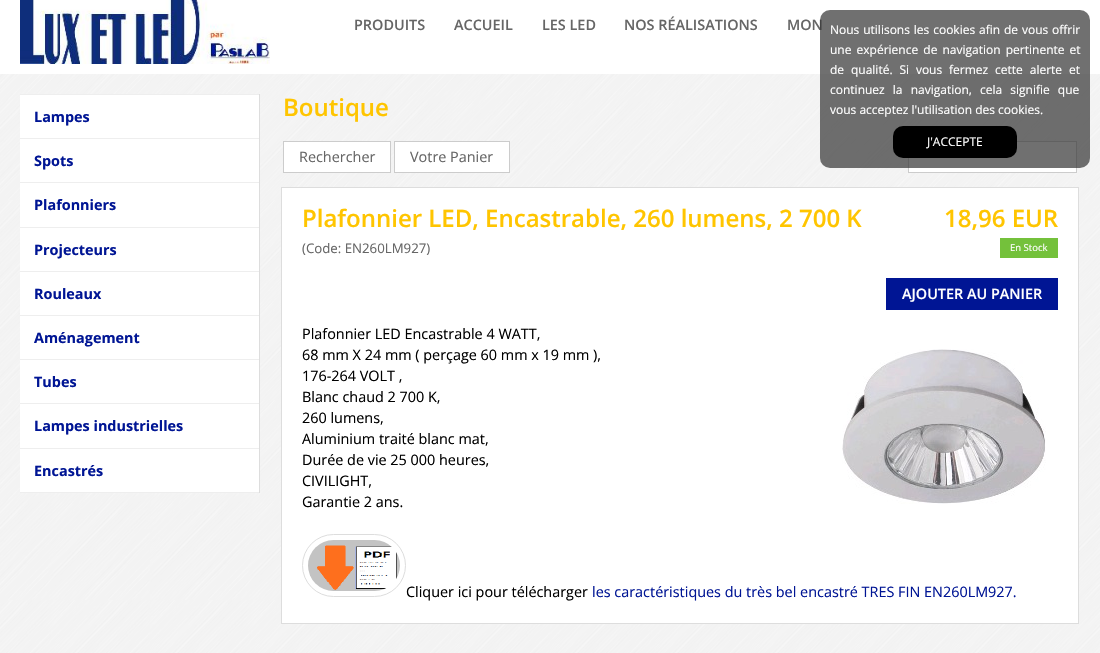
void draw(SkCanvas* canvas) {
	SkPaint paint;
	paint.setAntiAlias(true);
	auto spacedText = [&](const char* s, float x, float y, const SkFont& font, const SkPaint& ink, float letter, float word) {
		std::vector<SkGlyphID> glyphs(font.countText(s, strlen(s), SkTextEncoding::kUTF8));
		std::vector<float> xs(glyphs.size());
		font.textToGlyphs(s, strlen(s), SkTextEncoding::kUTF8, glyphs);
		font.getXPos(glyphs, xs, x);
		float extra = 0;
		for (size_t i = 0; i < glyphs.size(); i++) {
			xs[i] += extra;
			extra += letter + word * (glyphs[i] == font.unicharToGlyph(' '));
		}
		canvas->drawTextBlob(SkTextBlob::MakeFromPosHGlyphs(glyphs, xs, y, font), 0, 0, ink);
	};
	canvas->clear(0xffffffff);
	canvas->drawImageRect(SkImages::DeferredFromEncodedData(SkData::MakeFromFileName("img1.png")), SkRect::MakeXYWH(20, 0, 250, 64), SkSamplingOptions());
	SkFont f1(fontMgr->matchFamilyStyle("Open Sans", SkFontStyle(600, SkFontStyle::kNormal_Width, SkFontStyle::kUpright_Slant)), 14.4);
	f1.setSubpixel(true);
	paint.setColor(0xff666666);
	canvas->drawString("PRODUITS", 354, 30, f1, paint);
	canvas->drawString("ACCUEIL", 454, 30, f1, paint);
	canvas->drawString("LES LED", 542, 30, f1, paint);
	canvas->drawString("NOS RÉALISATIONS", 624, 30, f1, paint);
	canvas->drawString("MON", 787, 30, f1, paint);
	canvas->drawImageRect(SkImages::DeferredFromEncodedData(SkData::MakeFromFileName("img2.png")), SkRect::MakeXYWH(0, 74, 1100, 579), SkSamplingOptions());
	paint.setColor(0xffffffff);
	canvas->drawRect(SkRect::MakeXYWH(20, 95, 239, 397), paint);
	paint.setColor(0xffdddddd);
	canvas->drawRect(SkRect::MakeXYWH(259, 94, 1, 399), paint);
	paint.setColor(0xffeeeeee);
	canvas->drawRect(SkRect::MakeXYWH(20, 94, 239, 1), paint);
	canvas->drawRect(SkRect::MakeXYWH(20, 138, 239, 1), paint);
	SkFont f2(fontMgr->matchFamilyStyle("Open Sans", SkFontStyle::Bold()), 14.4);
	f2.setSubpixel(true);
	paint.setColor(0xff001594);
	canvas->drawString("Lampes", 34, 122, f2, paint);
	paint.setColor(0xffeeeeee);
	canvas->drawRect(SkRect::MakeXYWH(20, 182, 239, 1), paint);
	paint.setColor(0xff001594);
	canvas->drawString("Spots", 34, 166, f2, paint);
	paint.setColor(0xffeeeeee);
	canvas->drawRect(SkRect::MakeXYWH(20, 227, 239, 1), paint);
	paint.setColor(0xff001594);
	canvas->drawString("Plafonniers", 34, 210, f2, paint);
	paint.setColor(0xffeeeeee);
	canvas->drawRect(SkRect::MakeXYWH(20, 271, 239, 1), paint);
	paint.setColor(0xff001594);
	canvas->drawString("Projecteurs", 34, 255, f2, paint);
	paint.setColor(0xffeeeeee);
	canvas->drawRect(SkRect::MakeXYWH(20, 315, 239, 1), paint);
	paint.setColor(0xff001594);
	canvas->drawString("Rouleaux", 34, 299, f2, paint);
	paint.setColor(0xffeeeeee);
	canvas->drawRect(SkRect::MakeXYWH(20, 359, 239, 1), paint);
	paint.setColor(0xff001594);
	canvas->drawString("Aménagement", 34, 343, f2, paint);
	paint.setColor(0xffeeeeee);
	canvas->drawRect(SkRect::MakeXYWH(20, 403, 239, 1), paint);
	paint.setColor(0xff001594);
	canvas->drawString("Tubes", 34, 387, f2, paint);
	paint.setColor(0xffeeeeee);
	canvas->drawRect(SkRect::MakeXYWH(20, 448, 239, 1), paint);
	paint.setColor(0xff001594);
	canvas->drawString("Lampes industrielles", 34, 431, f2, paint);
	paint.setColor(0xffeeeeee);
	canvas->drawRect(SkRect::MakeXYWH(20, 492, 239, 1), paint);
	paint.setColor(0xff001594);
	canvas->drawString("Encastrés", 34, 476, f2, paint);
	SkFont f3(fontMgr->matchFamilyStyle("Open Sans", SkFontStyle(600, SkFontStyle::kNormal_Width, SkFontStyle::kUpright_Slant)), 24);
	f3.setSubpixel(true);
	paint.setColor(0xffffc500);
	canvas->drawString("Boutique", 283, 116, f3, paint);
	paint.setColor(0xffffffff);
	canvas->drawRect(SkRect::MakeXYWH(283.5, 141.5, 107, 31), paint);
	paint.setStroke(true);
	paint.setStrokeWidth(1);
	paint.setColor(0xffcccccc);
	canvas->drawRect(SkRect::MakeXYWH(283.5, 141.5, 107, 31), paint);
	SkFont f4(fontMgr->matchFamilyStyle("Open Sans", SkFontStyle::Normal()), 14.4);
	f4.setSubpixel(true);
	paint.setStroke(false);
	paint.setColor(0xff666666);
	canvas->drawString("Rechercher", 299, 162, f4, paint);
	paint.setColor(0xffffffff);
	canvas->drawRect(SkRect::MakeXYWH(394.5, 141.5, 115, 31), paint);
	paint.setStroke(true);
	paint.setColor(0xffcccccc);
	canvas->drawRect(SkRect::MakeXYWH(394.5, 141.5, 115, 31), paint);
	paint.setStroke(false);
	paint.setColor(0xff666666);
	canvas->drawString("Votre Panier", 410, 162, f4, paint);
	paint.setColor(0xffffffff);
	canvas->drawRect(SkRect::MakeXYWH(908.5, 141.5, 168, 31), paint);
	paint.setStroke(true);
	paint.setColor(0xffcccccc);
	canvas->drawRect(SkRect::MakeXYWH(908.5, 141.5, 168, 31), paint);
	paint.setStroke(false);
	paint.setColor(0xffffffff);
	canvas->drawRect(SkRect::MakeXYWH(281.5, 187.5, 797, 436), paint);
	paint.setStroke(true);
	paint.setColor(0xffdddddd);
	canvas->drawRect(SkRect::MakeXYWH(281.5, 187.5, 797, 436), paint);
	paint.setStroke(false);
	paint.setColor(0xffffc500);
	canvas->drawString("Plafonnier LED, Encastrable, 260 lumens, 2 700 K", 302, 227, f3, paint);
	SkFont f5(fontMgr->matchFamilyStyle("Open Sans", SkFontStyle::Normal()), 13.25);
	f5.setSubpixel(true);
	paint.setColor(0xff666666);
	canvas->drawString("(Code: EN260LM927)", 302, 253, f5, paint);
	paint.setColor(0xffffc500);
	canvas->drawString("18,96 EUR", 944, 227, f3, paint);
	paint.setColor(0xff74c13b);
	canvas->drawRect(SkRect::MakeXYWH(1000, 238, 58, 20), paint);
	SkFont f6(fontMgr->matchFamilyStyle("Open Sans", SkFontStyle::Normal()), 9.5);
	f6.setSubpixel(true);
	paint.setColor(0xffffffff);
	canvas->drawString("En Stock", 1010, 251, f6, paint);
	paint.setColor(0xff001594);
	canvas->drawRect(SkRect::MakeXYWH(886, 278, 172, 32), paint);
	paint.setColor(0xffffffff);
	canvas->drawString("AJOUTER AU PANIER", 902, 299, f1, paint);
	paint.setColor(0xff000000);
	canvas->drawString("Plafonnier LED Encastrable 4 WATT,", 302, 339, f4, paint);
	canvas->drawString("68 mm X 24 mm ( perçage 60 mm x 19 mm ),", 302, 360, f4, paint);
	canvas->drawImageRect(SkImages::DeferredFromEncodedData(SkData::MakeFromFileName("img3.png")), SkRect::MakeXYWH(842, 349, 204, 155), SkSamplingOptions());
	canvas->drawString("176-264 VOLT ,", 302, 381, f4, paint);
	canvas->drawString("Blanc chaud 2 700 K,", 302, 402, f4, paint);
	canvas->drawString("260 lumens,", 302, 423, f4, paint);
	canvas->drawString("Aluminium traité blanc mat,", 302, 444, f4, paint);
	canvas->drawString("Durée de vie 25 000 heures,", 302, 465, f4, paint);
	canvas->drawString("CIVILIGHT,", 302, 486, f4, paint);
	canvas->drawString("Garantie 2 ans.", 302, 507, f4, paint);
	paint.setStroke(true);
	paint.setColor(0xffdddddd);
	canvas->drawRoundRect(SkRect::MakeXYWH(302.5, 534.5, 103, 62), 31, 31, paint);
	canvas->drawImageRect(SkImages::DeferredFromEncodedData(SkData::MakeFromFileName("img4.png")), SkRect::MakeXYWH(308, 540, 92, 51), SkSamplingOptions());
	paint.setStroke(false);
	paint.setColor(0xff000000);
	canvas->drawString("Cliquer ici pour télécharger", 406, 597, f4, paint);
	paint.setColor(0xff001594);
	canvas->drawString("les caractéristiques du très bel encastré TRES FIN EN260LM927.", 592, 597, f4, paint);
	paint.setColor(0xb3333333);
	canvas->drawRoundRect(SkRect::MakeXYWH(820, 10, 270, 158), 10, 10, paint);
	SkFont f7(fontMgr->matchFamilyStyle("Open Sans", SkFontStyle::Normal()), 12);
	f7.setSubpixel(true);
	paint.setColor(0xffffffff);
	spacedText("Nous utilisons les cookies afin de vous offrir", 830, 34, f7, paint, 0, 0.75);
	spacedText("une expérience de navigation pertinente et", 830, 54, f7, paint, 0, 2);
	spacedText("de qualité. Si vous fermez cette alerte et", 830, 74, f7, paint, 0, 3.75);
	spacedText("continuez la navigation, cela signifie que", 830, 94, f7, paint, 0, 5);
	canvas->drawString("vous acceptez l'utilisation des cookies.", 830, 114, f7, paint);
	paint.setColor(0xff000000);
	canvas->drawRoundRect(SkRect::MakeXYWH(893, 126, 124, 32), 10, 10, paint);
	paint.setColor(0xffffffff);
	canvas->drawString("J'ACCEPTE", 927, 146, f7, paint);
}
